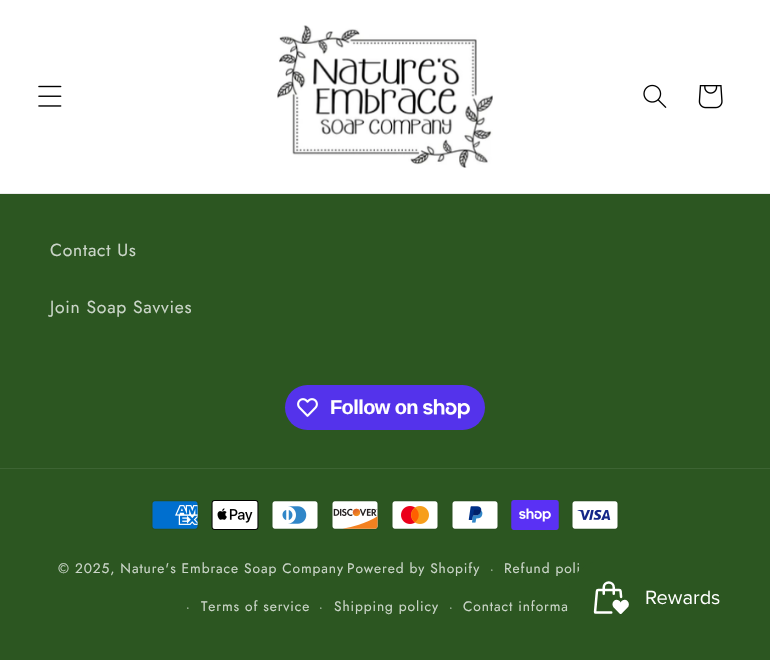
void draw(SkCanvas* canvas) {
	SkPaint paint;
	paint.setAntiAlias(true);
	auto spacedText = [&](const char* s, float x, float y, const SkFont& font, const SkPaint& ink, float letter, float word) {
		std::vector<SkGlyphID> glyphs(font.countText(s, strlen(s), SkTextEncoding::kUTF8));
		std::vector<float> xs(glyphs.size());
		font.textToGlyphs(s, strlen(s), SkTextEncoding::kUTF8, glyphs);
		font.getXPos(glyphs, xs, x);
		float extra = 0;
		for (size_t i = 0; i < glyphs.size(); i++) {
			xs[i] += extra;
			extra += letter + word * (glyphs[i] == font.unicharToGlyph(' '));
		}
		canvas->drawTextBlob(SkTextBlob::MakeFromPosHGlyphs(glyphs, xs, y, font), 0, 0, ink);
	};
	canvas->clear(0xff2c5621);
	paint.setColor(0xffffffff);
	canvas->drawRect(SkRect::MakeXYWH(0, 0, 770, 193), paint);
	paint.setColor(0xffebebeb);
	canvas->drawRect(SkRect::MakeXYWH(0, 193, 770, 1), paint);
	canvas->drawImageRect(SkImages::DeferredFromEncodedData(SkData::MakeFromFileName("img1.png")), SkRect::MakeXYWH(38, 85, 24, 22), SkSamplingOptions());
	canvas->drawImageRect(SkImages::DeferredFromEncodedData(SkData::MakeFromFileName("img2.png")), SkRect::MakeXYWH(277, 25, 216, 143), SkSamplingOptions());
	canvas->drawImageRect(SkImages::DeferredFromEncodedData(SkData::MakeFromFileName("img3.png")), SkRect::MakeXYWH(643, 84, 24, 24), SkSamplingOptions());
	canvas->drawImageRect(SkImages::DeferredFromEncodedData(SkData::MakeFromFileName("img4.png")), SkRect::MakeXYWH(698, 85, 25, 24), SkSamplingOptions());
	SkFont f1(fontMgr->matchFamilyStyle("Jost", SkFontStyle::Normal()), 17.5);
	f1.setSubpixel(true);
	paint.setColor(0xffcad5c8);
	spacedText("Contact Us", 50, 256, f1, paint, 0.75, 0);
	spacedText("Join Soap Savvies", 50, 313, f1, paint, 0.75, 0);
	paint.setColor(0xff5433eb);
	canvas->drawRoundRect(SkRect::MakeXYWH(285, 385, 200, 45), 22.5, 22.5, paint);
	canvas->drawImageRect(SkImages::DeferredFromEncodedData(SkData::MakeFromFileName("img5.png")), SkRect::MakeXYWH(297, 398, 21, 19), SkSamplingOptions());
	SkFont f2(fontMgr->matchFamilyStyle("Liberation Sans", SkFontStyle::Bold()), 20);
	f2.setSubpixel(true);
	paint.setColor(0xffffffff);
	spacedText("Follow on", 330, 414, f2, paint, -0.6, 0);
	canvas->drawImageRect(SkImages::DeferredFromEncodedData(SkData::MakeFromFileName("img6.png")), SkRect::MakeXYWH(423, 399, 47, 20), SkSamplingOptions());
	paint.setColor(0xff3d6433);
	canvas->drawRect(SkRect::MakeXYWH(0, 468, 770, 1), paint);
	canvas->drawImageRect(SkImages::DeferredFromEncodedData(SkData::MakeFromFileName("img7.png")), SkRect::MakeXYWH(151, 500, 48, 30), SkSamplingOptions());
	canvas->drawImageRect(SkImages::DeferredFromEncodedData(SkData::MakeFromFileName("img8.png")), SkRect::MakeXYWH(211, 500, 48, 30), SkSamplingOptions());
	canvas->drawImageRect(SkImages::DeferredFromEncodedData(SkData::MakeFromFileName("img9.png")), SkRect::MakeXYWH(271, 500, 48, 30), SkSamplingOptions());
	canvas->drawImageRect(SkImages::DeferredFromEncodedData(SkData::MakeFromFileName("img10.png")), SkRect::MakeXYWH(331, 500, 48, 30), SkSamplingOptions());
	canvas->drawImageRect(SkImages::DeferredFromEncodedData(SkData::MakeFromFileName("img11.png")), SkRect::MakeXYWH(391, 500, 48, 30), SkSamplingOptions());
	canvas->drawImageRect(SkImages::DeferredFromEncodedData(SkData::MakeFromFileName("img12.png")), SkRect::MakeXYWH(451, 500, 48, 30), SkSamplingOptions());
	canvas->drawImageRect(SkImages::DeferredFromEncodedData(SkData::MakeFromFileName("img13.png")), SkRect::MakeXYWH(511, 500, 48, 30), SkSamplingOptions());
	canvas->drawImageRect(SkImages::DeferredFromEncodedData(SkData::MakeFromFileName("img14.png")), SkRect::MakeXYWH(571, 500, 48, 30), SkSamplingOptions());
	SkFont f3(fontMgr->matchFamilyStyle("Jost", SkFontStyle::Normal()), 13.75);
	f3.setSubpixel(true);
	paint.setColor(0xffcad5c8);
	spacedText("© 2025, Nature's Embrace Soap Company", 58, 573, f3, paint, 0.9, 0);
	SkFont f4(fontMgr->matchFamilyStyle("Jost", SkFontStyle::Normal()), 12);
	f4.setSubpixel(true);
	spacedText("·", 490, 573, f4, paint, 0.9, 0);
	spacedText("Refund poli", 504, 573, f3, paint, 0.9, 0);
	spacedText("·", 186, 611, f4, paint, 0.9, 0);
	spacedText("Terms of service", 201, 611, f3, paint, 0.9, 0);
	spacedText("·", 319, 611, f4, paint, 0.9, 0);
	spacedText("Shipping policy", 334, 611, f3, paint, 0.9, 0);
	spacedText("·", 449, 611, f4, paint, 0.9, 0);
	spacedText("Contact informa", 463, 611, f3, paint, 0.9, 0);
	spacedText("Powered by Shopify", 347, 573, f3, paint, 0.9, 0);
	canvas->drawImageRect(SkImages::DeferredFromEncodedData(SkData::MakeFromFileName("img15.png")), SkRect::MakeXYWH(568, 562, 152, 52), SkSamplingOptions());
}
